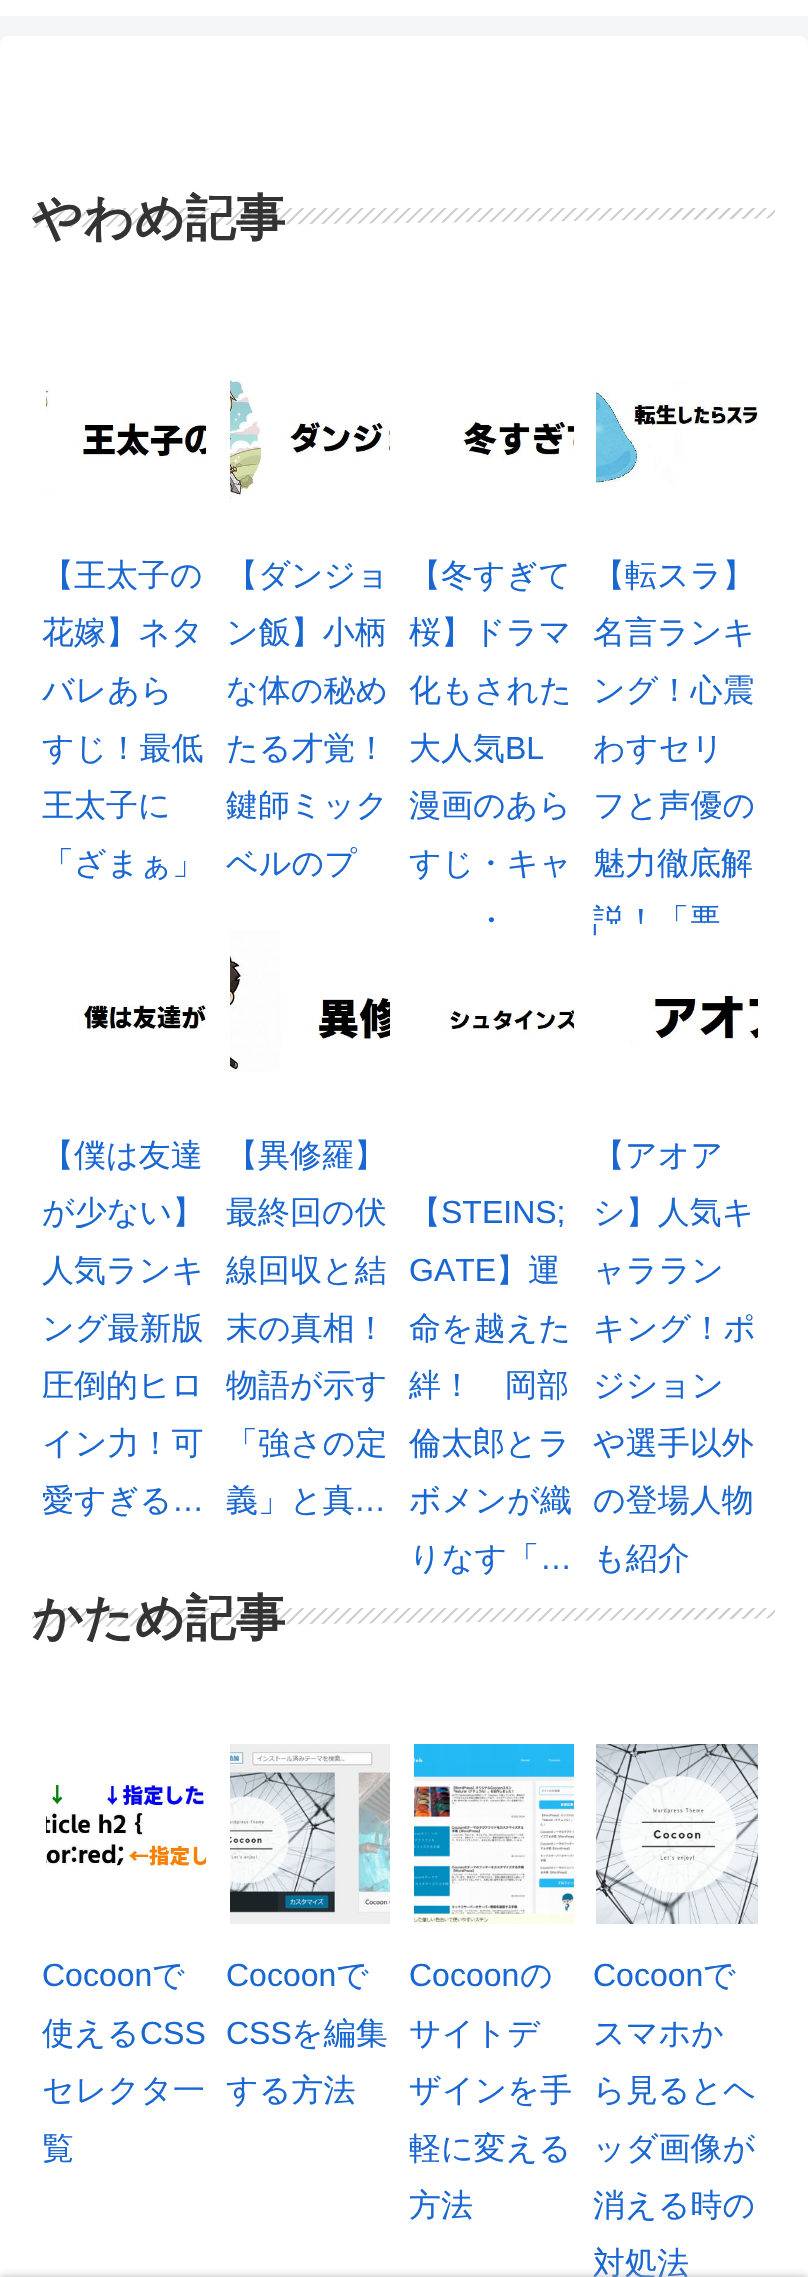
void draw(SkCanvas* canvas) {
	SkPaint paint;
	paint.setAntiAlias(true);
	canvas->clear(0xfff4f5f7);
	paint.setColor(0xffffffff);
	canvas->drawRect(SkRect::MakeXYWH(0, 0, 808, 16), paint);
	canvas->drawRoundRect(SkRect::MakeXYWH(0, 36, 808, 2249), 8, 8, paint);
	canvas->drawImageRect(SkImages::DeferredFromEncodedData(SkData::MakeFromFileName("img1.png")), SkRect::MakeXYWH(32, 208, 744, 20), SkSamplingOptions());
	SkFont f1(fontMgr->matchFamilyStyle("WenQuanYi Zen Hei", SkFontStyle::Bold()), 50);
	f1.setSubpixel(true);
	paint.setColor(0xff333333);
	canvas->drawString("やわめ記事", 32, 235, f1, paint);
	canvas->drawImageRect(SkImages::DeferredFromEncodedData(SkData::MakeFromFileName("img2.png")), SkRect::MakeXYWH(46, 385, 160, 112), SkSamplingOptions());
	SkFont f2(fontMgr->matchFamilyStyle("WenQuanYi Zen Hei", SkFontStyle(500, SkFontStyle::kNormal_Width, SkFontStyle::kUpright_Slant)), 32);
	f2.setSubpixel(true);
	paint.setColor(0xff1967d2);
	canvas->drawString("【王太子の", 42, 586, f2, paint);
	canvas->drawString("花嫁】ネタ", 42, 643, f2, paint);
	canvas->drawString("バレあら", 42, 701, f2, paint);
	canvas->drawString("すじ！最低", 42, 759, f2, paint);
	canvas->drawString("王太子に", 42, 816, f2, paint);
	canvas->drawString("「ざまぁ」", 42, 874, f2, paint);
	canvas->drawImageRect(SkImages::DeferredFromEncodedData(SkData::MakeFromFileName("img3.png")), SkRect::MakeXYWH(230, 375, 160, 124), SkSamplingOptions());
	canvas->drawString("【ダンジョ", 226, 586, f2, paint);
	canvas->drawString("ン飯】小柄", 226, 643, f2, paint);
	canvas->drawString("な体の秘め", 226, 701, f2, paint);
	canvas->drawString("たる才覚！", 226, 759, f2, paint);
	canvas->drawString("鍵師ミック", 226, 816, f2, paint);
	canvas->drawString("ベルのプ", 226, 874, f2, paint);
	canvas->drawImageRect(SkImages::DeferredFromEncodedData(SkData::MakeFromFileName("img4.png")), SkRect::MakeXYWH(460, 420, 114, 39), SkSamplingOptions());
	canvas->drawString("【冬すぎて", 409, 586, f2, paint);
	canvas->drawString("桜】ドラマ", 409, 643, f2, paint);
	canvas->drawString("化もされた", 409, 701, f2, paint);
	canvas->drawString("大人気", 409, 759, f2, paint);
	SkFont f3(fontMgr->matchFamilyStyle("Liberation Sans", SkFontStyle::Normal()), 32);
	f3.setSubpixel(true);
	canvas->drawString("BL", 505, 759, f3, paint);
	canvas->drawString("漫画のあら", 409, 816, f2, paint);
	canvas->drawString("すじ・キャ", 409, 874, f2, paint);
	canvas->drawString("・", 475, 931, f2, paint);
	canvas->drawImageRect(SkImages::DeferredFromEncodedData(SkData::MakeFromFileName("img5.png")), SkRect::MakeXYWH(596, 382, 162, 105), SkSamplingOptions());
	canvas->drawString("【転スラ】", 593, 586, f2, paint);
	canvas->drawString("名言ランキ", 593, 643, f2, paint);
	canvas->drawString("ング！心震", 593, 701, f2, paint);
	canvas->drawString("わすセリ", 593, 759, f2, paint);
	canvas->drawString("フと声優の", 593, 816, f2, paint);
	canvas->drawString("魅力徹底解", 593, 874, f2, paint);
	canvas->drawString("説！「悪", 593, 931, f2, paint);
	canvas->drawImageRect(SkImages::DeferredFromEncodedData(SkData::MakeFromFileName("img6.png")), SkRect::MakeXYWH(46, 924, 160, 106), SkSamplingOptions());
	canvas->drawString("【僕は友達", 42, 1166, f2, paint);
	canvas->drawString("が少ない】", 42, 1223, f2, paint);
	canvas->drawString("人気ランキ", 42, 1281, f2, paint);
	canvas->drawString("ング最新版", 42, 1339, f2, paint);
	canvas->drawString("圧倒的ヒロ", 42, 1396, f2, paint);
	canvas->drawString("イン力！可", 42, 1454, f2, paint);
	canvas->drawString("愛すぎる", 42, 1511, f2, paint);
	canvas->drawString("…", 172, 1511, f3, paint);
	canvas->drawImageRect(SkImages::DeferredFromEncodedData(SkData::MakeFromFileName("img7.png")), SkRect::MakeXYWH(230, 924, 160, 148), SkSamplingOptions());
	canvas->drawString("【異修羅】", 226, 1166, f2, paint);
	canvas->drawString("最終回の伏", 226, 1223, f2, paint);
	canvas->drawString("線回収と結", 226, 1281, f2, paint);
	canvas->drawString("末の真相！", 226, 1339, f2, paint);
	canvas->drawString("物語が示す", 226, 1396, f2, paint);
	canvas->drawString("「強さの定", 226, 1454, f2, paint);
	canvas->drawString("義」と真", 226, 1511, f2, paint);
	canvas->drawString("…", 354, 1511, f3, paint);
	canvas->drawImageRect(SkImages::DeferredFromEncodedData(SkData::MakeFromFileName("img8.png")), SkRect::MakeXYWH(414, 924, 160, 110), SkSamplingOptions());
	canvas->drawString("【", 409, 1223, f2, paint);
	canvas->drawString("STEINS;", 441, 1223, f3, paint);
	canvas->drawString("GATE", 409, 1281, f3, paint);
	canvas->drawString("】運", 496, 1281, f2, paint);
	canvas->drawString("命を越えた", 409, 1339, f2, paint);
	canvas->drawString("絆！　岡部", 409, 1396, f2, paint);
	canvas->drawString("倫太郎とラ", 409, 1454, f2, paint);
	canvas->drawString("ボメンが織", 409, 1511, f2, paint);
	canvas->drawString("りなす「", 409, 1569, f2, paint);
	canvas->drawString("…", 540, 1569, f3, paint);
	canvas->drawImageRect(SkImages::DeferredFromEncodedData(SkData::MakeFromFileName("img9.png")), SkRect::MakeXYWH(596, 924, 162, 119), SkSamplingOptions());
	canvas->drawString("【アオア", 593, 1166, f2, paint);
	canvas->drawString("シ】人気キ", 593, 1223, f2, paint);
	canvas->drawString("ャララン", 593, 1281, f2, paint);
	canvas->drawString("キング！ポ", 593, 1339, f2, paint);
	canvas->drawString("ジション", 593, 1396, f2, paint);
	canvas->drawString("や選手以外", 593, 1454, f2, paint);
	canvas->drawString("の登場人物", 593, 1511, f2, paint);
	canvas->drawString("も紹介", 593, 1569, f2, paint);
	canvas->drawImageRect(SkImages::DeferredFromEncodedData(SkData::MakeFromFileName("img1.png")), SkRect::MakeXYWH(32, 1608, 744, 20), SkSamplingOptions());
	paint.setColor(0xff333333);
	canvas->drawString("かため記事", 32, 1635, f1, paint);
	canvas->drawImageRect(SkImages::DeferredFromEncodedData(SkData::MakeFromFileName("img10.png")), SkRect::MakeXYWH(46, 1783, 160, 84), SkSamplingOptions());
	paint.setColor(0xff1967d2);
	canvas->drawString("Cocoon", 42, 1986, f3, paint);
	canvas->drawString("で", 152, 1986, f2, paint);
	canvas->drawString("使える", 42, 2044, f2, paint);
	canvas->drawString("CSS", 140, 2044, f3, paint);
	canvas->drawString("セレクタ一", 42, 2101, f2, paint);
	canvas->drawString("覧", 42, 2159, f2, paint);
	canvas->drawImageRect(SkImages::DeferredFromEncodedData(SkData::MakeFromFileName("img11.png")), SkRect::MakeXYWH(230, 1744, 160, 180), SkSamplingOptions());
	canvas->drawString("Cocoon", 226, 1986, f3, paint);
	canvas->drawString("で", 336, 1986, f2, paint);
	canvas->drawString("CSS", 226, 2044, f3, paint);
	canvas->drawString("を編集", 291, 2044, f2, paint);
	canvas->drawString("する方法", 226, 2101, f2, paint);
	canvas->drawImageRect(SkImages::DeferredFromEncodedData(SkData::MakeFromFileName("img12.png")), SkRect::MakeXYWH(414, 1744, 160, 180), SkSamplingOptions());
	canvas->drawString("Cocoon", 409, 1986, f3, paint);
	canvas->drawString("の", 520, 1986, f2, paint);
	canvas->drawString("サイトデ", 409, 2044, f2, paint);
	canvas->drawString("ザインを手", 409, 2101, f2, paint);
	canvas->drawString("軽に変える", 409, 2159, f2, paint);
	canvas->drawString("方法", 409, 2216, f2, paint);
	canvas->drawImageRect(SkImages::DeferredFromEncodedData(SkData::MakeFromFileName("img13.png")), SkRect::MakeXYWH(596, 1744, 162, 180), SkSamplingOptions());
	canvas->drawString("Cocoon", 593, 1986, f3, paint);
	canvas->drawString("で", 703, 1986, f2, paint);
	canvas->drawString("スマホか", 593, 2044, f2, paint);
	canvas->drawString("ら見るとヘ", 593, 2101, f2, paint);
	canvas->drawString("ッダ画像が", 593, 2159, f2, paint);
	canvas->drawString("消える時の", 593, 2216, f2, paint);
	canvas->drawString("対処法", 593, 2274, f2, paint);
	paint.setColor(0xffa9a9a9);
	paint.setMaskFilter(SkMaskFilter::MakeBlur(kNormal_SkBlurStyle, 5));
	canvas->drawRect(SkRect::MakeXYWH(0, 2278, 808, 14), paint);
	paint.setMaskFilter(nullptr);
}
